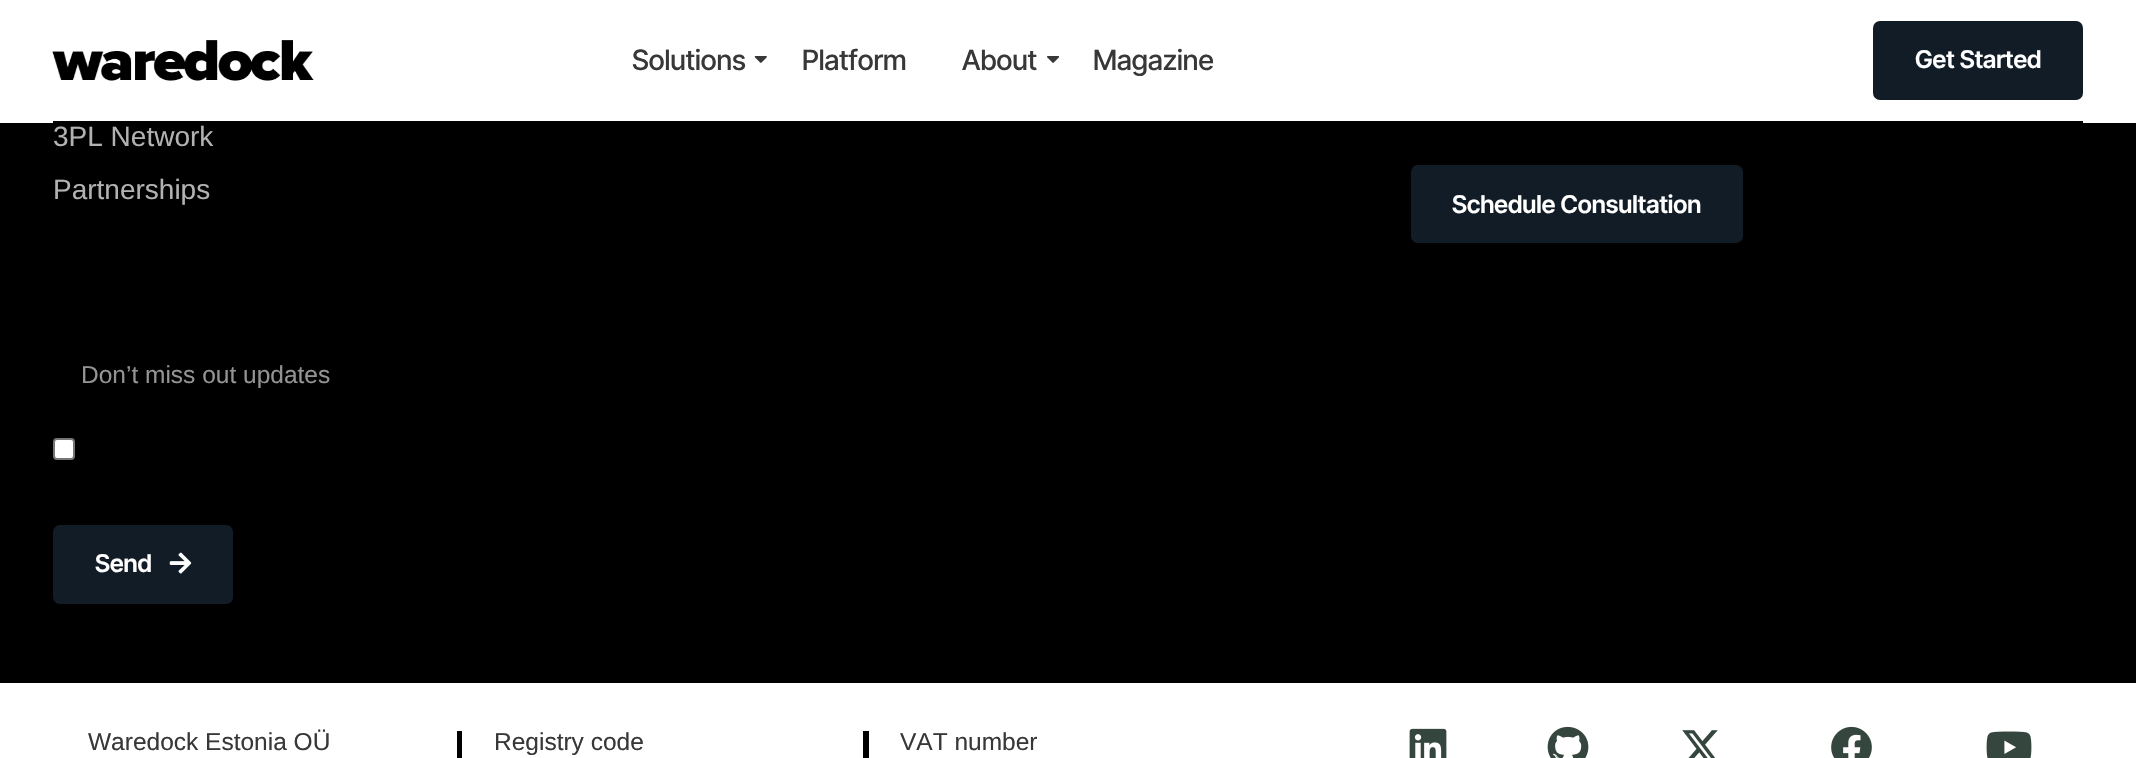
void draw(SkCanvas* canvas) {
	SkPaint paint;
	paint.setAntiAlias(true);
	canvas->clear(0xffffffff);
	paint.setColor(0xff000000);
	canvas->drawRect(SkRect::MakeXYWH(53, 121, 2030, 2), paint);
	canvas->drawImageRect(SkImages::DeferredFromEncodedData(SkData::MakeFromFileName("img1.png")), SkRect::MakeXYWH(52, 40, 262, 41), SkSamplingOptions());
	SkFont f1(fontMgr->matchFamilyStyle("Inter Tight", SkFontStyle(500, SkFontStyle::kNormal_Width, SkFontStyle::kUpright_Slant)), 28);
	f1.setSubpixel(true);
	paint.setColor(0xff383838);
	canvas->drawString("Solutions", 632, 70, f1, paint);
	canvas->drawImageRect(SkImages::DeferredFromEncodedData(SkData::MakeFromFileName("img2.png")), SkRect::MakeXYWH(754, 56, 13, 7), SkSamplingOptions());
	canvas->drawString("Platform", 802, 70, f1, paint);
	canvas->drawString("About", 962, 70, f1, paint);
	canvas->drawImageRect(SkImages::DeferredFromEncodedData(SkData::MakeFromFileName("img3.png")), SkRect::MakeXYWH(1047, 56, 13, 7), SkSamplingOptions());
	canvas->drawString("Magazine", 1093, 70, f1, paint);
	paint.setColor(0xff121c27);
	canvas->drawRoundRect(SkRect::MakeXYWH(1873, 21, 210, 79), 7, 7, paint);
	SkFont f2(fontMgr->matchFamilyStyle("Inter Tight", SkFontStyle(600, SkFontStyle::kNormal_Width, SkFontStyle::kUpright_Slant)), 24.5);
	f2.setSubpixel(true);
	paint.setColor(0xffffffff);
	canvas->drawString("Get Started", 1915, 68, f2, paint);
	paint.setColor(0xff000000);
	canvas->drawRect(SkRect::MakeXYWH(0, 123, 2136, 560), paint);
	SkFont f3(fontMgr->matchFamilyStyle("Liberation Sans", SkFontStyle::Normal()), 28);
	f3.setSubpixel(true);
	paint.setColor(0xffb2b2b2);
	canvas->drawString("3PL Network", 53, 146, f3, paint);
	canvas->drawString("Partnerships", 53, 199, f3, paint);
	SkFont f4(fontMgr->matchFamilyStyle("Liberation Sans", SkFontStyle::Normal()), 24.5);
	f4.setSubpixel(true);
	paint.setColor(0xff939393);
	canvas->drawString("Don’t miss out updates", 81, 383, f4, paint);
	paint.setColor(0xffffffff);
	canvas->drawRoundRect(SkRect::MakeXYWH(54, 439, 20, 20), 3, 3, paint);
	paint.setStroke(true);
	paint.setStrokeWidth(2);
	paint.setColor(0xff767676);
	canvas->drawRoundRect(SkRect::MakeXYWH(54, 439, 20, 20), 3, 3, paint);
	paint.setStroke(false);
	paint.setColor(0xff121c27);
	canvas->drawRoundRect(SkRect::MakeXYWH(53, 525, 180, 79), 7, 7, paint);
	paint.setColor(0xffffffff);
	canvas->drawString("Send", 95, 572, f2, paint);
	canvas->drawImageRect(SkImages::DeferredFromEncodedData(SkData::MakeFromFileName("img4.png")), SkRect::MakeXYWH(169, 552, 23, 22), SkSamplingOptions());
	paint.setColor(0xff121c27);
	canvas->drawRoundRect(SkRect::MakeXYWH(1411, 165, 332, 78), 7, 7, paint);
	paint.setColor(0xffffffff);
	canvas->drawString("Schedule Consultation", 1452, 213, f2, paint);
	paint.setColor(0xff383838);
	canvas->drawString("Waredock Estonia OÜ", 88, 750, f4, paint);
	paint.setColor(0xff000000);
	canvas->drawRect(SkRect::MakeXYWH(457, 731, 5, 27), paint);
	paint.setColor(0xff383838);
	canvas->drawString("Registry code", 494, 750, f4, paint);
	paint.setColor(0xff000000);
	canvas->drawRect(SkRect::MakeXYWH(863, 731, 6, 27), paint);
	paint.setColor(0xff383838);
	canvas->drawString("VAT number", 900, 750, f4, paint);
	canvas->drawImageRect(SkImages::DeferredFromEncodedData(SkData::MakeFromFileName("img5.png")), SkRect::MakeXYWH(1409, 728, 38, 30), SkSamplingOptions());
	canvas->drawImageRect(SkImages::DeferredFromEncodedData(SkData::MakeFromFileName("img6.png")), SkRect::MakeXYWH(1547, 726, 42, 32), SkSamplingOptions());
	canvas->drawImageRect(SkImages::DeferredFromEncodedData(SkData::MakeFromFileName("img7.png")), SkRect::MakeXYWH(1682, 730, 36, 28), SkSamplingOptions());
	canvas->drawImageRect(SkImages::DeferredFromEncodedData(SkData::MakeFromFileName("img8.png")), SkRect::MakeXYWH(1831, 726, 41, 32), SkSamplingOptions());
	canvas->drawImageRect(SkImages::DeferredFromEncodedData(SkData::MakeFromFileName("img9.png")), SkRect::MakeXYWH(1986, 731, 46, 27), SkSamplingOptions());
}
